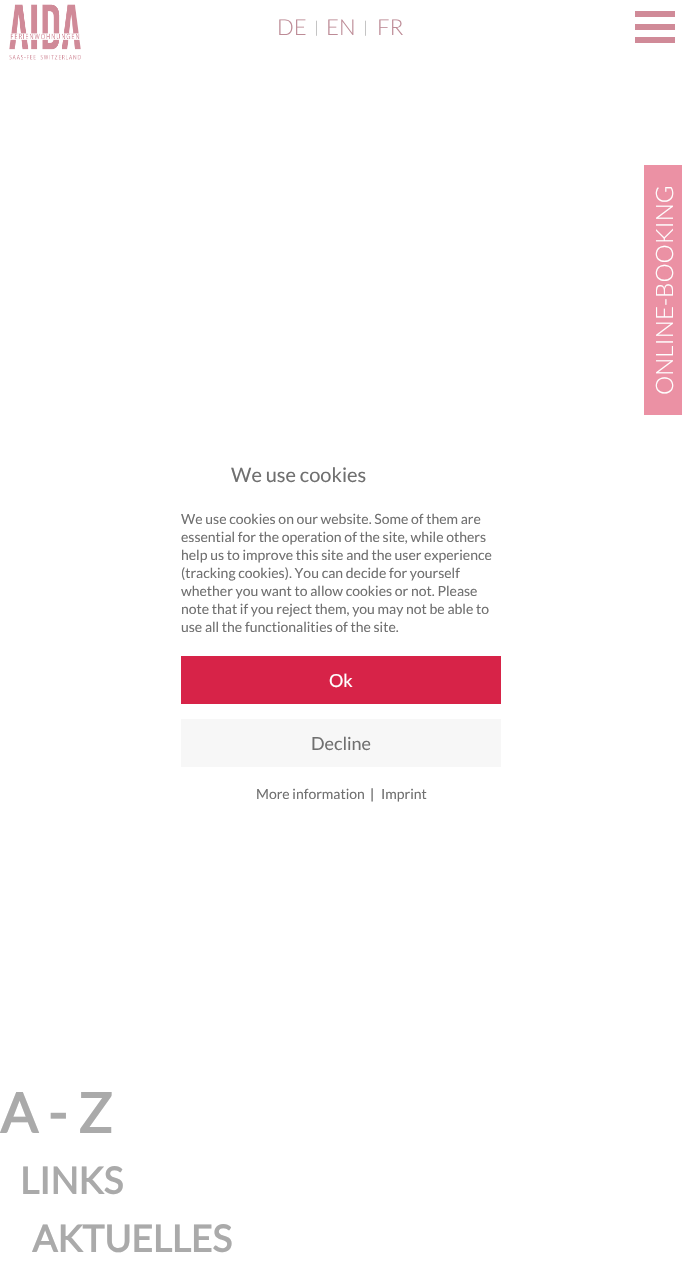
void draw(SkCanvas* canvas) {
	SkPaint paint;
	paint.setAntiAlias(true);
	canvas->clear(0xffffffff);
	canvas->drawImageRect(SkImages::DeferredFromEncodedData(SkData::MakeFromFileName("img1.png")), SkRect::MakeXYWH(9, 4, 72, 56), SkSamplingOptions());
	SkFont f1(fontMgr->matchFamilyStyle("Lato", SkFontStyle(300, SkFontStyle::kNormal_Width, SkFontStyle::kUpright_Slant)), 22);
	f1.setSubpixel(true);
	paint.setColor(0xffbd8b96);
	canvas->drawString("DE", 277, 35, f1, paint);
	SkFont f2(fontMgr->matchFamilyStyle("Lato", SkFontStyle(300, SkFontStyle::kNormal_Width, SkFontStyle::kUpright_Slant)), 16);
	f2.setSubpixel(true);
	paint.setColor(0xffaaaaaa);
	canvas->drawString("|", 314, 33, f2, paint);
	paint.setColor(0xffbd8b96);
	canvas->drawString("EN", 326, 35, f1, paint);
	paint.setColor(0xffaaaaaa);
	canvas->drawString("|", 363, 33, f2, paint);
	paint.setColor(0xffbd8b96);
	canvas->drawString("FR", 377, 35, f1, paint);
	canvas->drawImageRect(SkImages::DeferredFromEncodedData(SkData::MakeFromFileName("img2.png")), SkRect::MakeXYWH(635, 11, 40, 32), SkSamplingOptions());
	paint.setColor(0xffeb91a4);
	canvas->drawRect(SkRect::MakeXYWH(644, 165, 38, 250), paint);
	SkFont f3(fontMgr->matchFamilyStyle("Lato", SkFontStyle(300, SkFontStyle::kNormal_Width, SkFontStyle::kUpright_Slant)), 24);
	f3.setSubpixel(true);
	paint.setColor(0xffffffff);
	canvas->save();
	canvas->rotate(-90, 673, 395);
	canvas->drawString("ONLINE-BOOKING", 673, 395, f3, paint);
	canvas->restore();
	SkFont f4(fontMgr->matchFamilyStyle("Lato", SkFontStyle::Normal()), 20);
	f4.setSubpixel(true);
	paint.setColor(0xff707070);
	canvas->drawString("We use cookies", 231, 482, f4, paint);
	SkFont f5(fontMgr->matchFamilyStyle("Lato", SkFontStyle::Normal()), 14);
	f5.setSubpixel(true);
	canvas->drawString("We use cookies on our website. Some of them are", 181, 524, f5, paint);
	canvas->drawString("essential for the operation of the site, while others", 181, 542, f5, paint);
	canvas->drawString("help us to improve this site and the user experience", 181, 560, f5, paint);
	canvas->drawString("(tracking cookies). You can decide for yourself", 181, 578, f5, paint);
	canvas->drawString("whether you want to allow cookies or not. Please", 181, 596, f5, paint);
	canvas->drawString("note that if you reject them, you may not be able to", 181, 614, f5, paint);
	canvas->drawString("use all the functionalities of the site.", 181, 632, f5, paint);
	paint.setColor(0xffd72348);
	canvas->drawRect(SkRect::MakeXYWH(181, 656, 320, 48), paint);
	SkFont f6(fontMgr->matchFamilyStyle("Lato", SkFontStyle::Normal()), 18);
	f6.setSubpixel(true);
	paint.setColor(0xffffffff);
	canvas->drawString("Ok", 329, 687, f6, paint);
	paint.setColor(0xfff7f7f7);
	canvas->drawRect(SkRect::MakeXYWH(181, 719, 320, 48), paint);
	paint.setColor(0xff707070);
	canvas->drawString("Decline", 311, 750, f6, paint);
	canvas->drawString("More information", 256, 799, f5, paint);
	paint.setColor(0xff555555);
	canvas->drawString("|", 370, 799, f5, paint);
	paint.setColor(0xff707070);
	canvas->drawString("Imprint", 381, 799, f5, paint);
	SkFont f7(fontMgr->matchFamilyStyle("Lato", SkFontStyle::Bold()), 55);
	f7.setSubpixel(true);
	paint.setColor(0xffaaaaaa);
	canvas->drawString("A - Z", 0, 1133, f7, paint);
	SkFont f8(fontMgr->matchFamilyStyle("Lato", SkFontStyle::Bold()), 37);
	f8.setSubpixel(true);
	canvas->drawString("LINKS", 20, 1194, f8, paint);
	canvas->drawString("AKTUELLES", 32, 1252, f8, paint);
}
